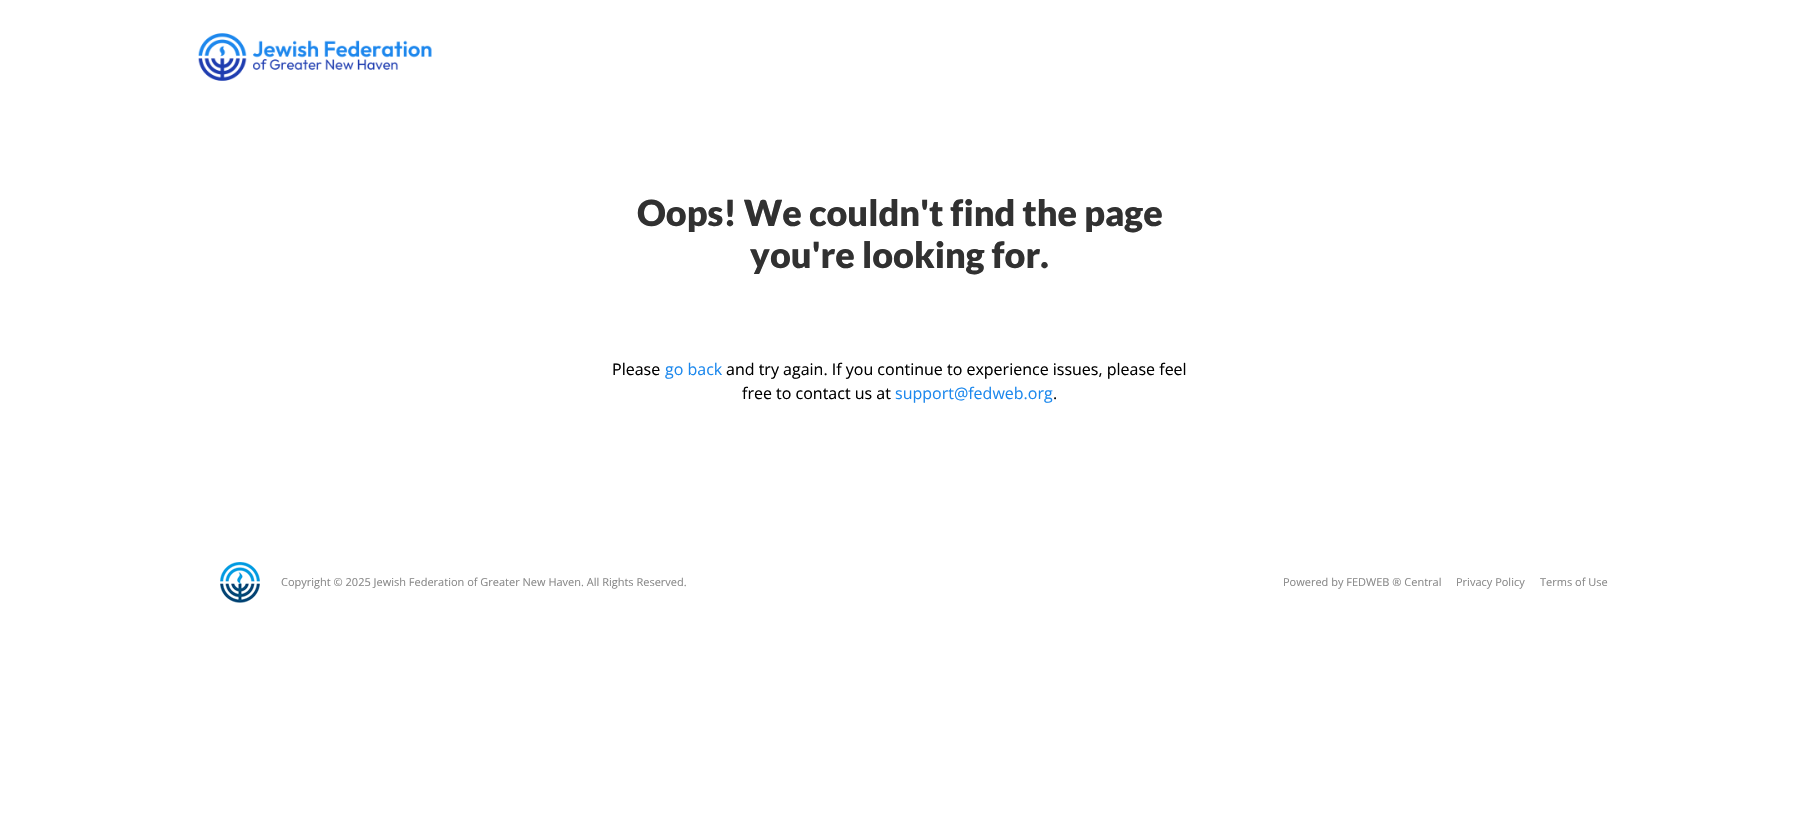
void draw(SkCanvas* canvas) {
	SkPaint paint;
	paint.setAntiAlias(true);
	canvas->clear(0xffffffff);
	canvas->drawImageRect(SkImages::DeferredFromEncodedData(SkData::MakeFromFileName("img1.png")), SkRect::MakeXYWH(198, 33, 234, 48), SkSamplingOptions());
	SkFont f1(fontMgr->matchFamilyStyle("Lato", SkFontStyle(900, SkFontStyle::kNormal_Width, SkFontStyle::kUpright_Slant)), 36);
	f1.setSubpixel(true);
	paint.setColor(0xff313131);
	canvas->drawString("Oops! We couldn't find the page", 637, 226, f1, paint);
	canvas->drawString("you're looking for.", 750, 268, f1, paint);
	SkFont f2(fontMgr->matchFamilyStyle("Open Sans", SkFontStyle::Normal()), 16);
	f2.setSubpixel(true);
	paint.setColor(0xff000000);
	canvas->drawString("Please", 612, 375, f2, paint);
	paint.setColor(0xff1c88ed);
	canvas->drawString("go back", 665, 375, f2, paint);
	paint.setColor(0xff000000);
	canvas->drawString("and try again. If you continue to experience issues, please feel", 726, 375, f2, paint);
	canvas->drawString("free to contact us at", 742, 399, f2, paint);
	paint.setColor(0xff1c88ed);
	canvas->drawString("support@fedweb.org", 895, 399, f2, paint);
	paint.setColor(0xff000000);
	canvas->drawString(".", 1053, 399, f2, paint);
	canvas->drawImageRect(SkImages::DeferredFromEncodedData(SkData::MakeFromFileName("img2.png")), SkRect::MakeXYWH(220, 562, 40, 41), SkSamplingOptions());
	SkFont f3(fontMgr->matchFamilyStyle("Open Sans", SkFontStyle::Normal()), 11);
	f3.setSubpixel(true);
	paint.setColor(0xff898989);
	canvas->drawString("Copyright © 2025 Jewish Federation of Greater New Haven. All Rights Reserved.", 281, 586, f3, paint);
	canvas->drawString("Powered by FEDWEB ® Central", 1283, 586, f3, paint);
	canvas->drawString("Privacy Policy", 1456, 586, f3, paint);
	canvas->drawString("Terms of Use", 1540, 586, f3, paint);
}
